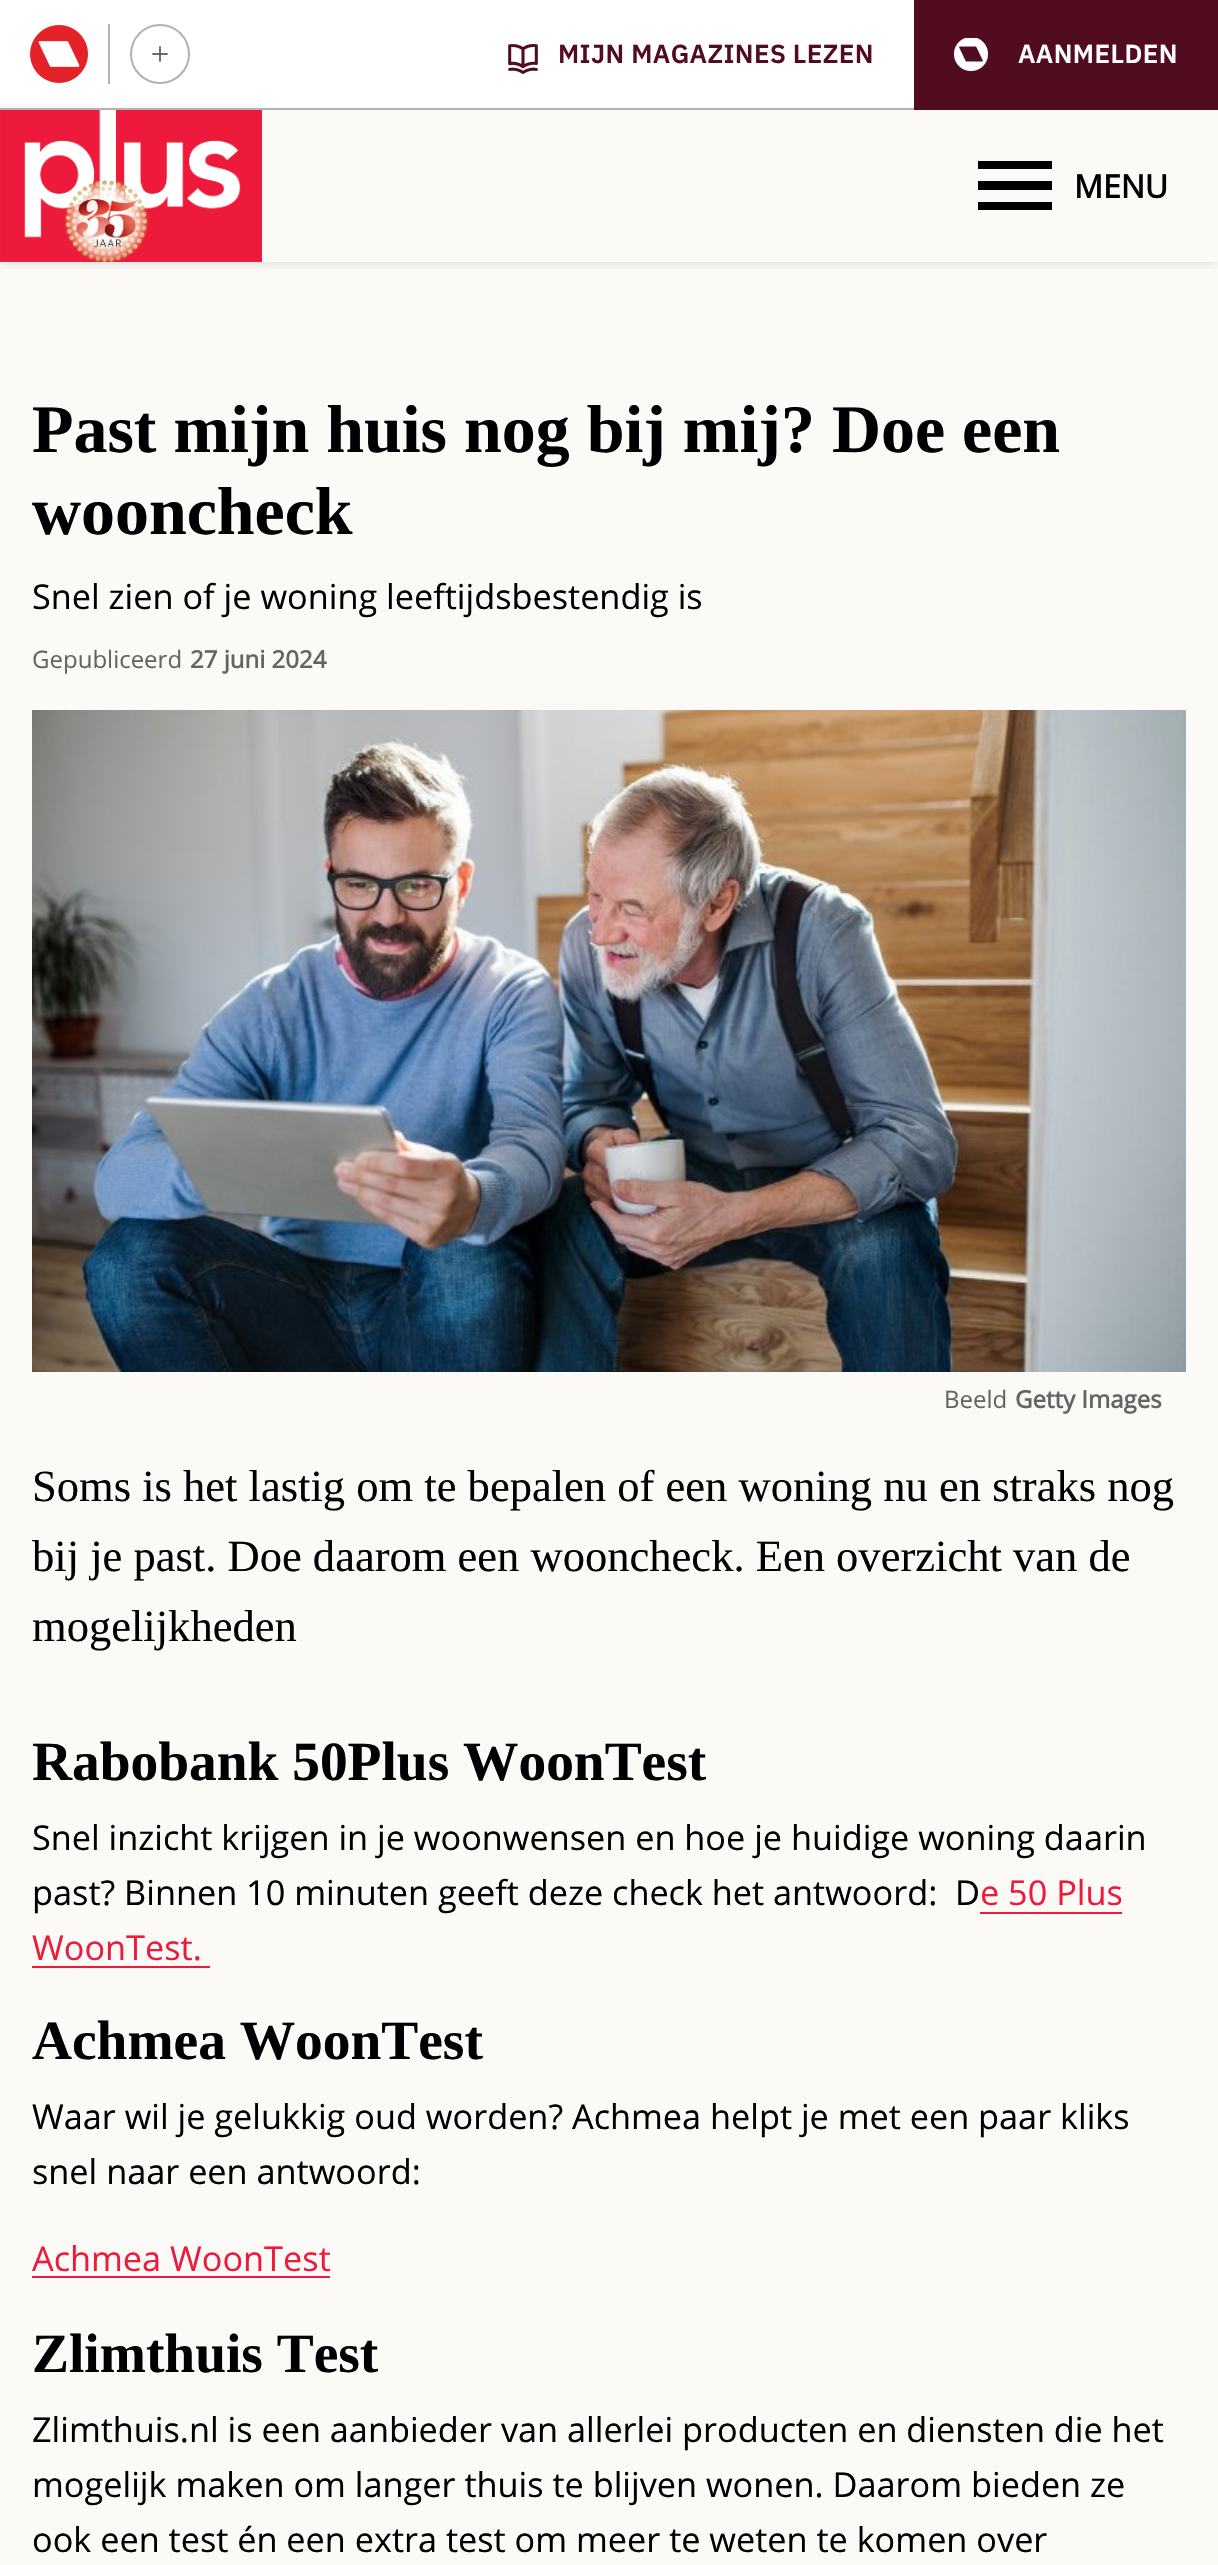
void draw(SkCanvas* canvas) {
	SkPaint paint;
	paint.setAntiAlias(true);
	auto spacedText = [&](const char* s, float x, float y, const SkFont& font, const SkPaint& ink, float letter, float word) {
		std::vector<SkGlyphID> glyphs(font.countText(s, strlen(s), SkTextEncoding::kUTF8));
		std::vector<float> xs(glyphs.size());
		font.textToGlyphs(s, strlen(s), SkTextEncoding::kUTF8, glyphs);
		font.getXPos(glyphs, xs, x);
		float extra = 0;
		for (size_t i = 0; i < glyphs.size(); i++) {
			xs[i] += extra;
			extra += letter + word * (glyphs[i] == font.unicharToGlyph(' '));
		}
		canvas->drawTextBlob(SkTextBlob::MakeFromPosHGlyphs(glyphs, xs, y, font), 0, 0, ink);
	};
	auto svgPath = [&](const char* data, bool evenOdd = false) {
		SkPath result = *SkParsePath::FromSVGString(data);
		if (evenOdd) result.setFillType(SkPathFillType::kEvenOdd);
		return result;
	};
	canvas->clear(0xfffcfaf7);
	canvas->save();
	canvas->clipRect(SkRect::MakeXYWH(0, 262, 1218, 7));
	paint.setColor(0x1a000000);
	paint.setMaskFilter(SkMaskFilter::MakeBlur(kNormal_SkBlurStyle, 6));
	canvas->drawRect(SkRect::MakeXYWH(0, 112, 1218, 152), paint);
	paint.setMaskFilter(nullptr);
	canvas->restore();
	paint.setColor(0xffffffff);
	canvas->drawRect(SkRect::MakeXYWH(0, 0, 914, 108), paint);
	paint.setColor(0xffb2b2b2);
	canvas->drawRect(SkRect::MakeXYWH(0, 108, 914, 2), paint);
	paint.setColor(0xffb2b1b1);
	canvas->drawRect(SkRect::MakeXYWH(108, 24, 2, 60), paint);
	canvas->drawImageRect(SkImages::DeferredFromEncodedData(SkData::MakeFromFileName("img1.png")), SkRect::MakeXYWH(30, 25, 58, 58), SkSamplingOptions());
	paint.setStroke(true);
	paint.setStrokeWidth(2);
	canvas->drawCircle(160, 54, 29, paint);
	canvas->drawImageRect(SkImages::DeferredFromEncodedData(SkData::MakeFromFileName("img2.png")), SkRect::MakeXYWH(152, 46, 16, 16), SkSamplingOptions());
	canvas->drawImageRect(SkImages::DeferredFromEncodedData(SkData::MakeFromFileName("img3.png")), SkRect::MakeXYWH(508, 44, 30, 30), SkSamplingOptions());
	SkFont f1(fontMgr->matchFamilyStyle("IBM Plex Sans", SkFontStyle(600, SkFontStyle::kNormal_Width, SkFontStyle::kUpright_Slant)), 26);
	f1.setSubpixel(true);
	paint.setStroke(false);
	paint.setColor(0xff520c20);
	spacedText("MIJN MAGAZINES LEZEN", 558, 63, f1, paint, 0.4, 0);
	canvas->drawRect(SkRect::MakeXYWH(914, 0, 304, 110), paint);
	canvas->drawImageRect(SkImages::DeferredFromEncodedData(SkData::MakeFromFileName("img4.png")), SkRect::MakeXYWH(954, 38, 34, 34), SkSamplingOptions());
	paint.setColor(0xffffffff);
	spacedText("AANMELDEN", 1018, 63, f1, paint, 0.4, 0);
	canvas->drawImageRect(SkImages::DeferredFromEncodedData(SkData::MakeFromFileName("img5.png")), SkRect::MakeXYWH(0, 110, 262, 152), SkSamplingOptions());
	paint.setColor(0xff000000);
	canvas->drawPath(svgPath("M978 210H1052V202H978ZM978 190H1052V181H978ZM978 161V169H1052V161Z"), paint);
	SkFont f2(fontMgr->matchFamilyStyle("Open Sans", SkFontStyle::Bold()), 32);
	f2.setSubpixel(true);
	canvas->drawString("MENU", 1074, 198, f2, paint);
	SkFont f3(fontMgr->matchFamilyStyle("Liberation Serif", SkFontStyle::Bold()), 67.9);
	f3.setSubpixel(true);
	canvas->drawString("Past mijn huis nog bij mij?", 32, 452, f3, paint);
	canvas->drawString("Doe een", 832, 452, f3, paint);
	canvas->drawString("wooncheck", 32, 534, f3, paint);
	SkFont f4(fontMgr->matchFamilyStyle("Open Sans", SkFontStyle::Normal()), 34.25);
	f4.setSubpixel(true);
	canvas->drawString("Snel zien of je woning leeftijdsbestendig is", 32, 609, f4, paint);
	SkFont f5(fontMgr->matchFamilyStyle("Open Sans", SkFontStyle::Normal()), 24);
	f5.setSubpixel(true);
	paint.setColor(0xff656463);
	canvas->drawString("Gepubliceerd", 32, 668, f5, paint);
	SkFont f6(fontMgr->matchFamilyStyle("Open Sans", SkFontStyle::Bold()), 24);
	f6.setSubpixel(true);
	canvas->drawString("27 juni 2024", 190, 668, f6, paint);
	canvas->drawImageRect(SkImages::DeferredFromEncodedData(SkData::MakeFromFileName("img6.png")), SkRect::MakeXYWH(32, 710, 1154, 662), SkSamplingOptions());
	canvas->drawString("Beeld", 944, 1408, f5, paint);
	canvas->drawString("Getty Images", 1015, 1408, f6, paint);
	SkFont f7(fontMgr->matchFamilyStyle("Liberation Serif", SkFontStyle::Normal()), 44.55);
	f7.setSubpixel(true);
	paint.setColor(0xff000000);
	canvas->drawString("Soms is het lastig om te bepalen of een woning nu en straks nog", 32, 1501, f7, paint);
	canvas->drawString("bij je past. Doe daarom een wooncheck. Een overzicht van de", 32, 1571, f7, paint);
	canvas->drawString("mogelijkheden", 32, 1641, f7, paint);
	SkFont f8(fontMgr->matchFamilyStyle("Liberation Serif", SkFontStyle::Bold()), 55.4);
	f8.setSubpixel(true);
	canvas->drawString("Rabobank 50Plus WoonTest", 32, 1780, f8, paint);
	canvas->drawString("Snel inzicht krijgen in je woonwensen en hoe je huidige woning daarin", 32, 1850, f4, paint);
	canvas->drawString("past? Binnen 10 minuten geeft deze check het antwoord:  D", 32, 1905, f4, paint);
	paint.setColor(0xffed1a3b);
	canvas->drawString("e 50 Plus", 980, 1905, f4, paint);
	canvas->drawRect(SkRect::MakeXYWH(980, 1912, 142, 2), paint);
	canvas->drawString("WoonTest.", 32, 1960, f4, paint);
	canvas->drawRect(SkRect::MakeXYWH(32, 1966, 178, 2), paint);
	paint.setColor(0xff000000);
	canvas->drawString("Achmea WoonTest", 32, 2059, f8, paint);
	canvas->drawString("Waar wil je gelukkig oud worden? Achmea helpt je met een paar kliks", 32, 2129, f4, paint);
	canvas->drawString("snel naar een antwoord:", 32, 2184, f4, paint);
	paint.setColor(0xffed1a3b);
	canvas->drawString("Achmea WoonTest", 32, 2271, f4, paint);
	canvas->drawRect(SkRect::MakeXYWH(32, 2276, 298, 2), paint);
	paint.setColor(0xff000000);
	canvas->drawString("Zlimthuis Test", 32, 2372, f8, paint);
	canvas->drawString("Zlimthuis.nl is een aanbieder van allerlei producten en diensten die het", 32, 2442, f4, paint);
	canvas->drawString("mogelijk maken om langer thuis te blijven wonen. Daarom bieden ze", 32, 2497, f4, paint);
	canvas->drawString("ook een test én een extra test om meer te weten te komen over", 32, 2552, f4, paint);
}
